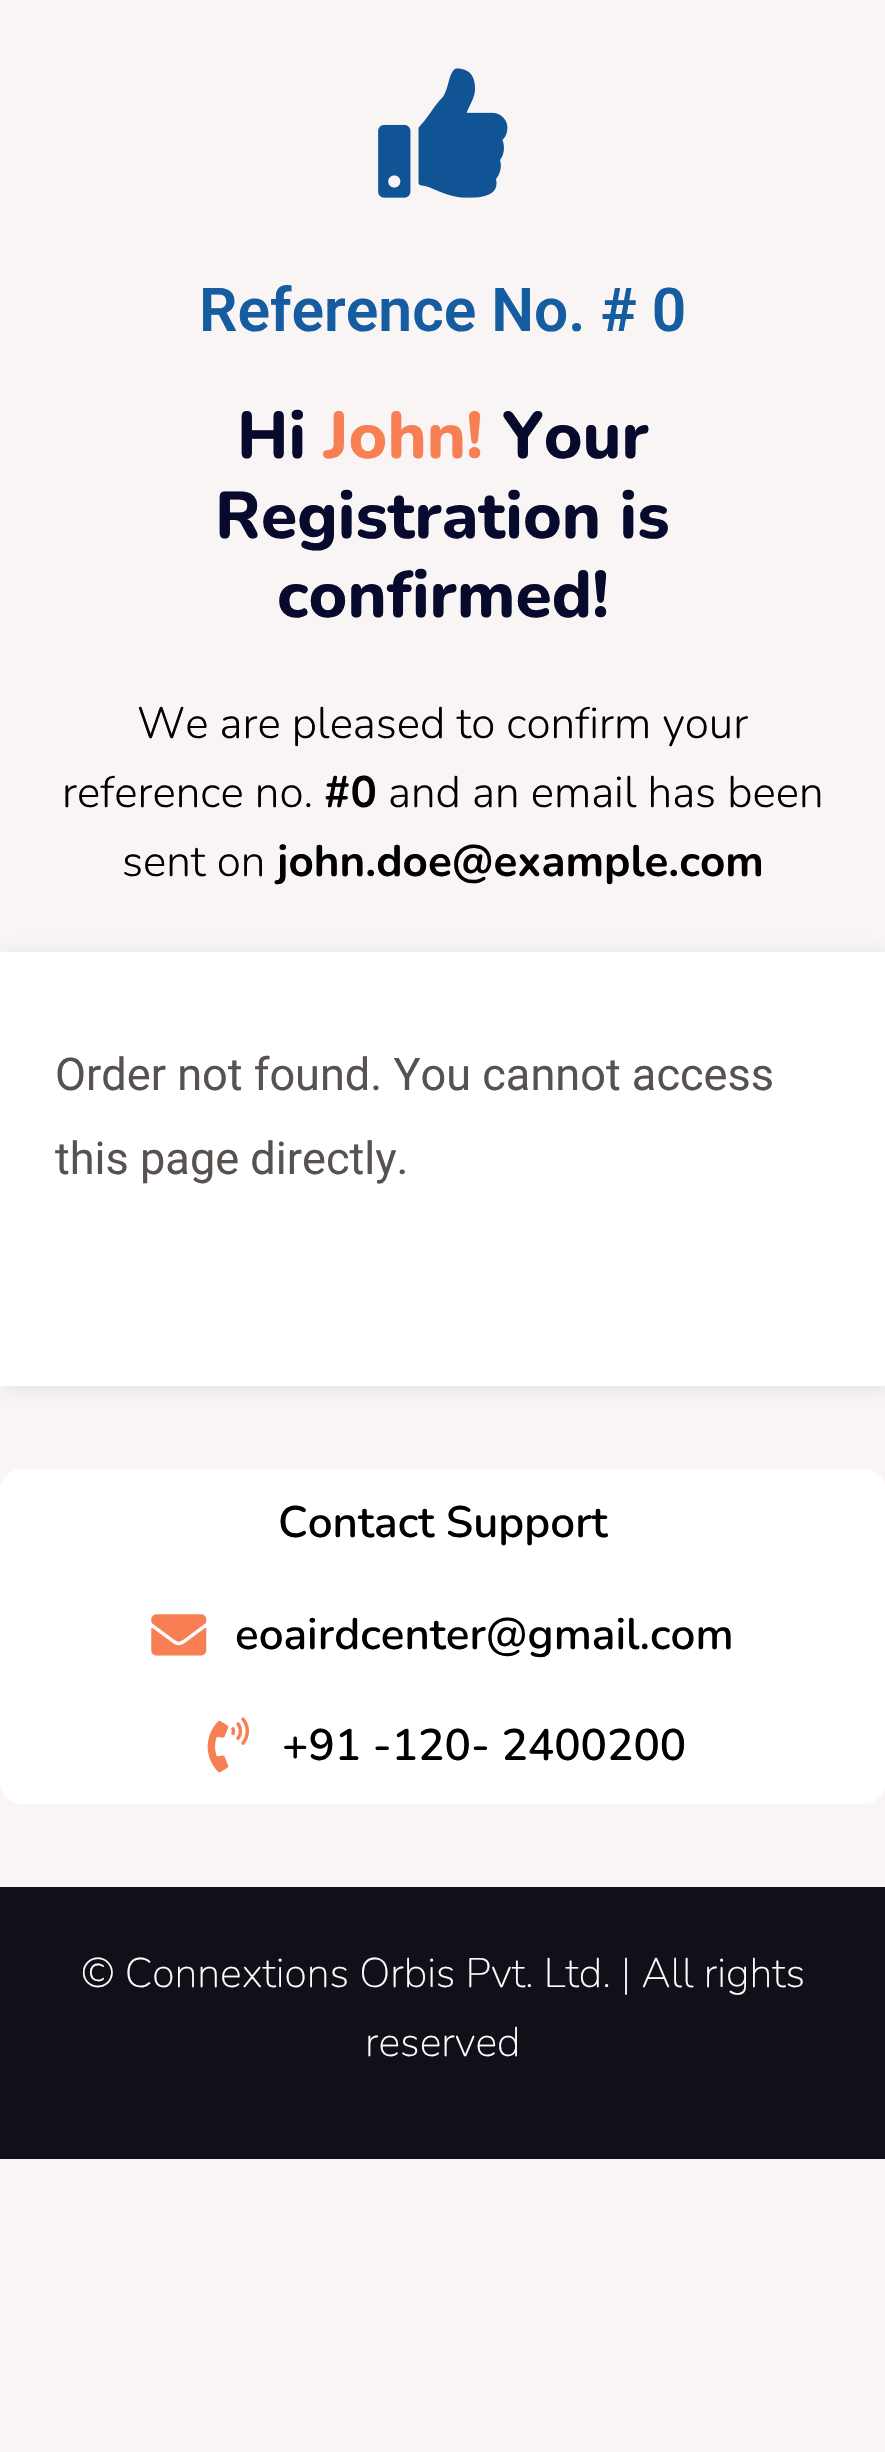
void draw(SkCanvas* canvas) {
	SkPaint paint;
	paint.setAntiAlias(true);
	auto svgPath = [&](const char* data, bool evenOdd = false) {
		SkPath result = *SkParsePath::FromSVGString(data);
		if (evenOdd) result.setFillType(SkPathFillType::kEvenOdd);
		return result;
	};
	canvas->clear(0xfff8f5f4);
	canvas->drawImageRect(SkImages::DeferredFromEncodedData(SkData::MakeFromFileName("img1.png")), SkRect::MakeXYWH(378, 68, 130, 130), SkSamplingOptions());
	SkFont f1(fontMgr->matchFamilyStyle("Roboto", SkFontStyle(600, SkFontStyle::kNormal_Width, SkFontStyle::kUpright_Slant)), 60.5);
	f1.setSubpixel(true);
	paint.setColor(0xff155ca1);
	canvas->drawString("Reference No. # 0", 199, 331, f1, paint);
	SkFont f2(fontMgr->matchFamilyStyle("Nunito", SkFontStyle(800, SkFontStyle::kNormal_Width, SkFontStyle::kUpright_Slant)), 66);
	f2.setSubpixel(true);
	paint.setColor(0xff080a2d);
	canvas->drawString("Hi", 237, 458, f2, paint);
	paint.setColor(0xfff77f53);
	canvas->drawString("John!", 324, 458, f2, paint);
	paint.setColor(0xff080a2d);
	canvas->drawString("Your", 502, 458, f2, paint);
	canvas->drawString("Registration is", 215, 538, f2, paint);
	canvas->drawString("confirmed!", 277, 617, f2, paint);
	SkFont f3(fontMgr->matchFamilyStyle("Nunito", SkFontStyle(300, SkFontStyle::kNormal_Width, SkFontStyle::kUpright_Slant)), 44);
	f3.setSubpixel(true);
	paint.setColor(0xff000000);
	canvas->drawString("We are pleased to confirm your", 137, 738, f3, paint);
	canvas->drawString("reference no.", 62, 807, f3, paint);
	SkFont f4(fontMgr->matchFamilyStyle("Nunito", SkFontStyle::Bold()), 44);
	f4.setSubpixel(true);
	canvas->drawString("#0", 324, 807, f4, paint);
	canvas->drawString("and an email has been", 388, 807, f3, paint);
	canvas->drawString("sent on", 122, 876, f3, paint);
	canvas->drawString("john.doe@example.com", 277, 876, f4, paint);
	paint.setColor(0x80cecece);
	paint.setMaskFilter(SkMaskFilter::MakeBlur(kNormal_SkBlurStyle, 9.5));
	canvas->drawRect(SkRect::MakeXYWH(3, 954, 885, 435), paint);
	paint.setMaskFilter(nullptr);
	paint.setColor(0xffffffff);
	canvas->drawRect(SkRect::MakeXYWH(0, 952, 885, 434), paint);
	SkFont f5(fontMgr->matchFamilyStyle("Roboto", SkFontStyle::Normal()), 45.1);
	f5.setSubpixel(true);
	paint.setColor(0xff575250);
	canvas->drawString("Order not found. You cannot access", 55, 1090, f5, paint);
	canvas->drawString("this page directly.", 55, 1174, f5, paint);
	paint.setColor(0xffffffff);
	canvas->drawPath(svgPath("M22 1469H864C876 1469 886 1479 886 1491V1581H0V1491C0 1479 10 1469 22 1469Z"), paint);
	SkFont f6(fontMgr->matchFamilyStyle("Nunito", SkFontStyle(600, SkFontStyle::kNormal_Width, SkFontStyle::kUpright_Slant)), 44);
	f6.setSubpixel(true);
	paint.setColor(0xff000000);
	canvas->drawString("Contact Support", 278, 1537, f6, paint);
	paint.setColor(0xffffffff);
	canvas->drawRect(SkRect::MakeXYWH(0, 1581, 885, 110), paint);
	canvas->drawImageRect(SkImages::DeferredFromEncodedData(SkData::MakeFromFileName("img2.png")), SkRect::MakeXYWH(151, 1614, 56, 42), SkSamplingOptions());
	paint.setColor(0xff000000);
	canvas->drawString("eoairdcenter@gmail.com", 235, 1649, f6, paint);
	paint.setColor(0xffffffff);
	canvas->drawPath(svgPath("M0 1691H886V1782C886 1794 876 1804 864 1804H22C10 1804 0 1794 0 1782Z"), paint);
	canvas->drawImageRect(SkImages::DeferredFromEncodedData(SkData::MakeFromFileName("img3.png")), SkRect::MakeXYWH(207, 1717, 42, 56), SkSamplingOptions());
	paint.setColor(0xff000000);
	canvas->drawString("+91 -120- 2400200", 282, 1760, f6, paint);
	paint.setColor(0xff101118);
	canvas->drawRect(SkRect::MakeXYWH(0, 1887, 885, 272), paint);
	SkFont f7(fontMgr->matchFamilyStyle("Nunito", SkFontStyle(200, SkFontStyle::kNormal_Width, SkFontStyle::kUpright_Slant)), 41.25);
	f7.setSubpixel(true);
	paint.setColor(0xffffffff);
	canvas->drawString("© Connextions Orbis Pvt. Ltd. | All rights", 81, 1987, f7, paint);
	canvas->drawString("reserved", 365, 2056, f7, paint);
}
